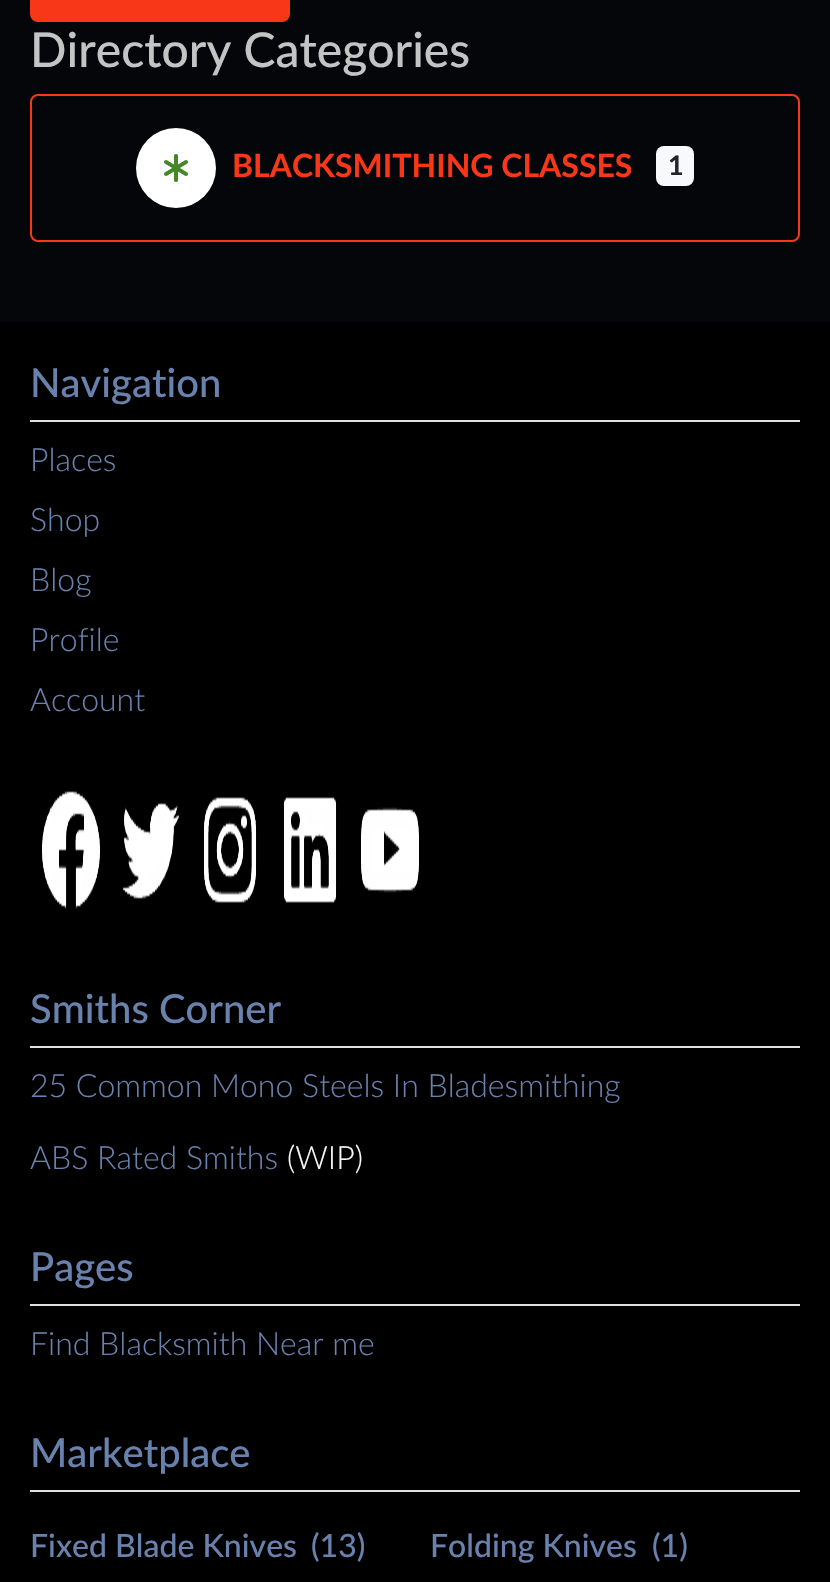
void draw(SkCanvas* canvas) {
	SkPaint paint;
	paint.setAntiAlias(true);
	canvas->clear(0xff04060a);
	paint.setColor(0xfff73718);
	canvas->drawRoundRect(SkRect::MakeXYWH(31, -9, 258, 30), 7, 7, paint);
	paint.setStroke(true);
	paint.setStrokeWidth(2);
	canvas->drawRoundRect(SkRect::MakeXYWH(31, -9, 258, 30), 7, 7, paint);
	SkFont f1(fontMgr->matchFamilyStyle("Lato", SkFontStyle(500, SkFontStyle::kNormal_Width, SkFontStyle::kUpright_Slant)), 48);
	f1.setSubpixel(true);
	paint.setStroke(false);
	paint.setColor(0xffc4c4c4);
	canvas->drawString("Directory Categories", 30, 67, f1, paint);
	paint.setStroke(true);
	paint.setColor(0xfff73718);
	canvas->drawRoundRect(SkRect::MakeXYWH(31, 95, 768, 146), 7, 7, paint);
	paint.setStroke(false);
	paint.setColor(0xffffffff);
	canvas->drawCircle(176, 168, 40, paint);
	canvas->drawImageRect(SkImages::DeferredFromEncodedData(SkData::MakeFromFileName("img1.png")), SkRect::MakeXYWH(164, 154, 24, 28), SkSamplingOptions());
	SkFont f2(fontMgr->matchFamilyStyle("Lato", SkFontStyle::Bold()), 32);
	f2.setSubpixel(true);
	paint.setColor(0xfff73718);
	canvas->drawString("BLACKSMITHING CLASSES", 232, 177, f2, paint);
	paint.setColor(0xfff8f9fa);
	canvas->drawRoundRect(SkRect::MakeXYWH(656, 146, 38, 40), 8, 8, paint);
	SkFont f3(fontMgr->matchFamilyStyle("Lato", SkFontStyle::Bold()), 27);
	f3.setSubpixel(true);
	paint.setColor(0xff212529);
	canvas->drawString("1", 668, 175, f3, paint);
	paint.setColor(0xff000000);
	canvas->drawRect(SkRect::MakeXYWH(0, 322, 830, 1260), paint);
	paint.setColor(0xffdee2e6);
	canvas->drawRect(SkRect::MakeXYWH(30, 420, 770, 2), paint);
	SkFont f4(fontMgr->matchFamilyStyle("Lato", SkFontStyle(500, SkFontStyle::kNormal_Width, SkFontStyle::kUpright_Slant)), 40);
	f4.setSubpixel(true);
	paint.setColor(0xff6981ad);
	canvas->drawString("Navigation", 30, 397, f4, paint);
	SkFont f5(fontMgr->matchFamilyStyle("Lato", SkFontStyle(300, SkFontStyle::kNormal_Width, SkFontStyle::kUpright_Slant)), 32);
	f5.setSubpixel(true);
	canvas->drawString("Places", 30, 471, f5, paint);
	canvas->drawString("Shop", 30, 531, f5, paint);
	canvas->drawString("Blog", 30, 591, f5, paint);
	canvas->drawString("Profile", 30, 651, f5, paint);
	canvas->drawString("Account", 30, 711, f5, paint);
	canvas->drawImageRect(SkImages::DeferredFromEncodedData(SkData::MakeFromFileName("img2.png")), SkRect::MakeXYWH(42, 791, 58, 118), SkSamplingOptions());
	canvas->drawImageRect(SkImages::DeferredFromEncodedData(SkData::MakeFromFileName("img3.png")), SkRect::MakeXYWH(123, 801, 57, 98), SkSamplingOptions());
	canvas->drawImageRect(SkImages::DeferredFromEncodedData(SkData::MakeFromFileName("img4.png")), SkRect::MakeXYWH(203, 797, 54, 106), SkSamplingOptions());
	canvas->drawImageRect(SkImages::DeferredFromEncodedData(SkData::MakeFromFileName("img5.png")), SkRect::MakeXYWH(283, 797, 54, 106), SkSamplingOptions());
	canvas->drawImageRect(SkImages::DeferredFromEncodedData(SkData::MakeFromFileName("img6.png")), SkRect::MakeXYWH(361, 807, 58, 86), SkSamplingOptions());
	paint.setColor(0xffdee2e6);
	canvas->drawRect(SkRect::MakeXYWH(30, 1046, 770, 2), paint);
	paint.setColor(0xff6981ad);
	canvas->drawString("Smiths Corner", 30, 1023, f4, paint);
	canvas->drawString("25 Common Mono Steels In Bladesmithing", 30, 1097, f5, paint);
	canvas->drawString("ABS Rated Smiths", 30, 1169, f5, paint);
	paint.setColor(0xfff8f9fa);
	canvas->drawString("(WIP)", 287, 1169, f5, paint);
	paint.setColor(0xffdee2e6);
	canvas->drawRect(SkRect::MakeXYWH(30, 1304, 770, 2), paint);
	paint.setColor(0xff6981ad);
	canvas->drawString("Pages", 30, 1281, f4, paint);
	canvas->drawString("Find Blacksmith Near me", 30, 1355, f5, paint);
	paint.setColor(0xffdee2e6);
	canvas->drawRect(SkRect::MakeXYWH(30, 1490, 770, 2), paint);
	paint.setColor(0xff6981ad);
	canvas->drawString("Marketplace", 30, 1467, f4, paint);
	SkFont f6(fontMgr->matchFamilyStyle("Lato", SkFontStyle(500, SkFontStyle::kNormal_Width, SkFontStyle::kUpright_Slant)), 32);
	f6.setSubpixel(true);
	canvas->drawString("Fixed Blade Knives", 30, 1557, f6, paint);
	canvas->drawString("(13)", 311, 1557, f6, paint);
	canvas->drawString("Folding Knives", 430, 1557, f6, paint);
	canvas->drawString("(1)", 652, 1557, f6, paint);
}
